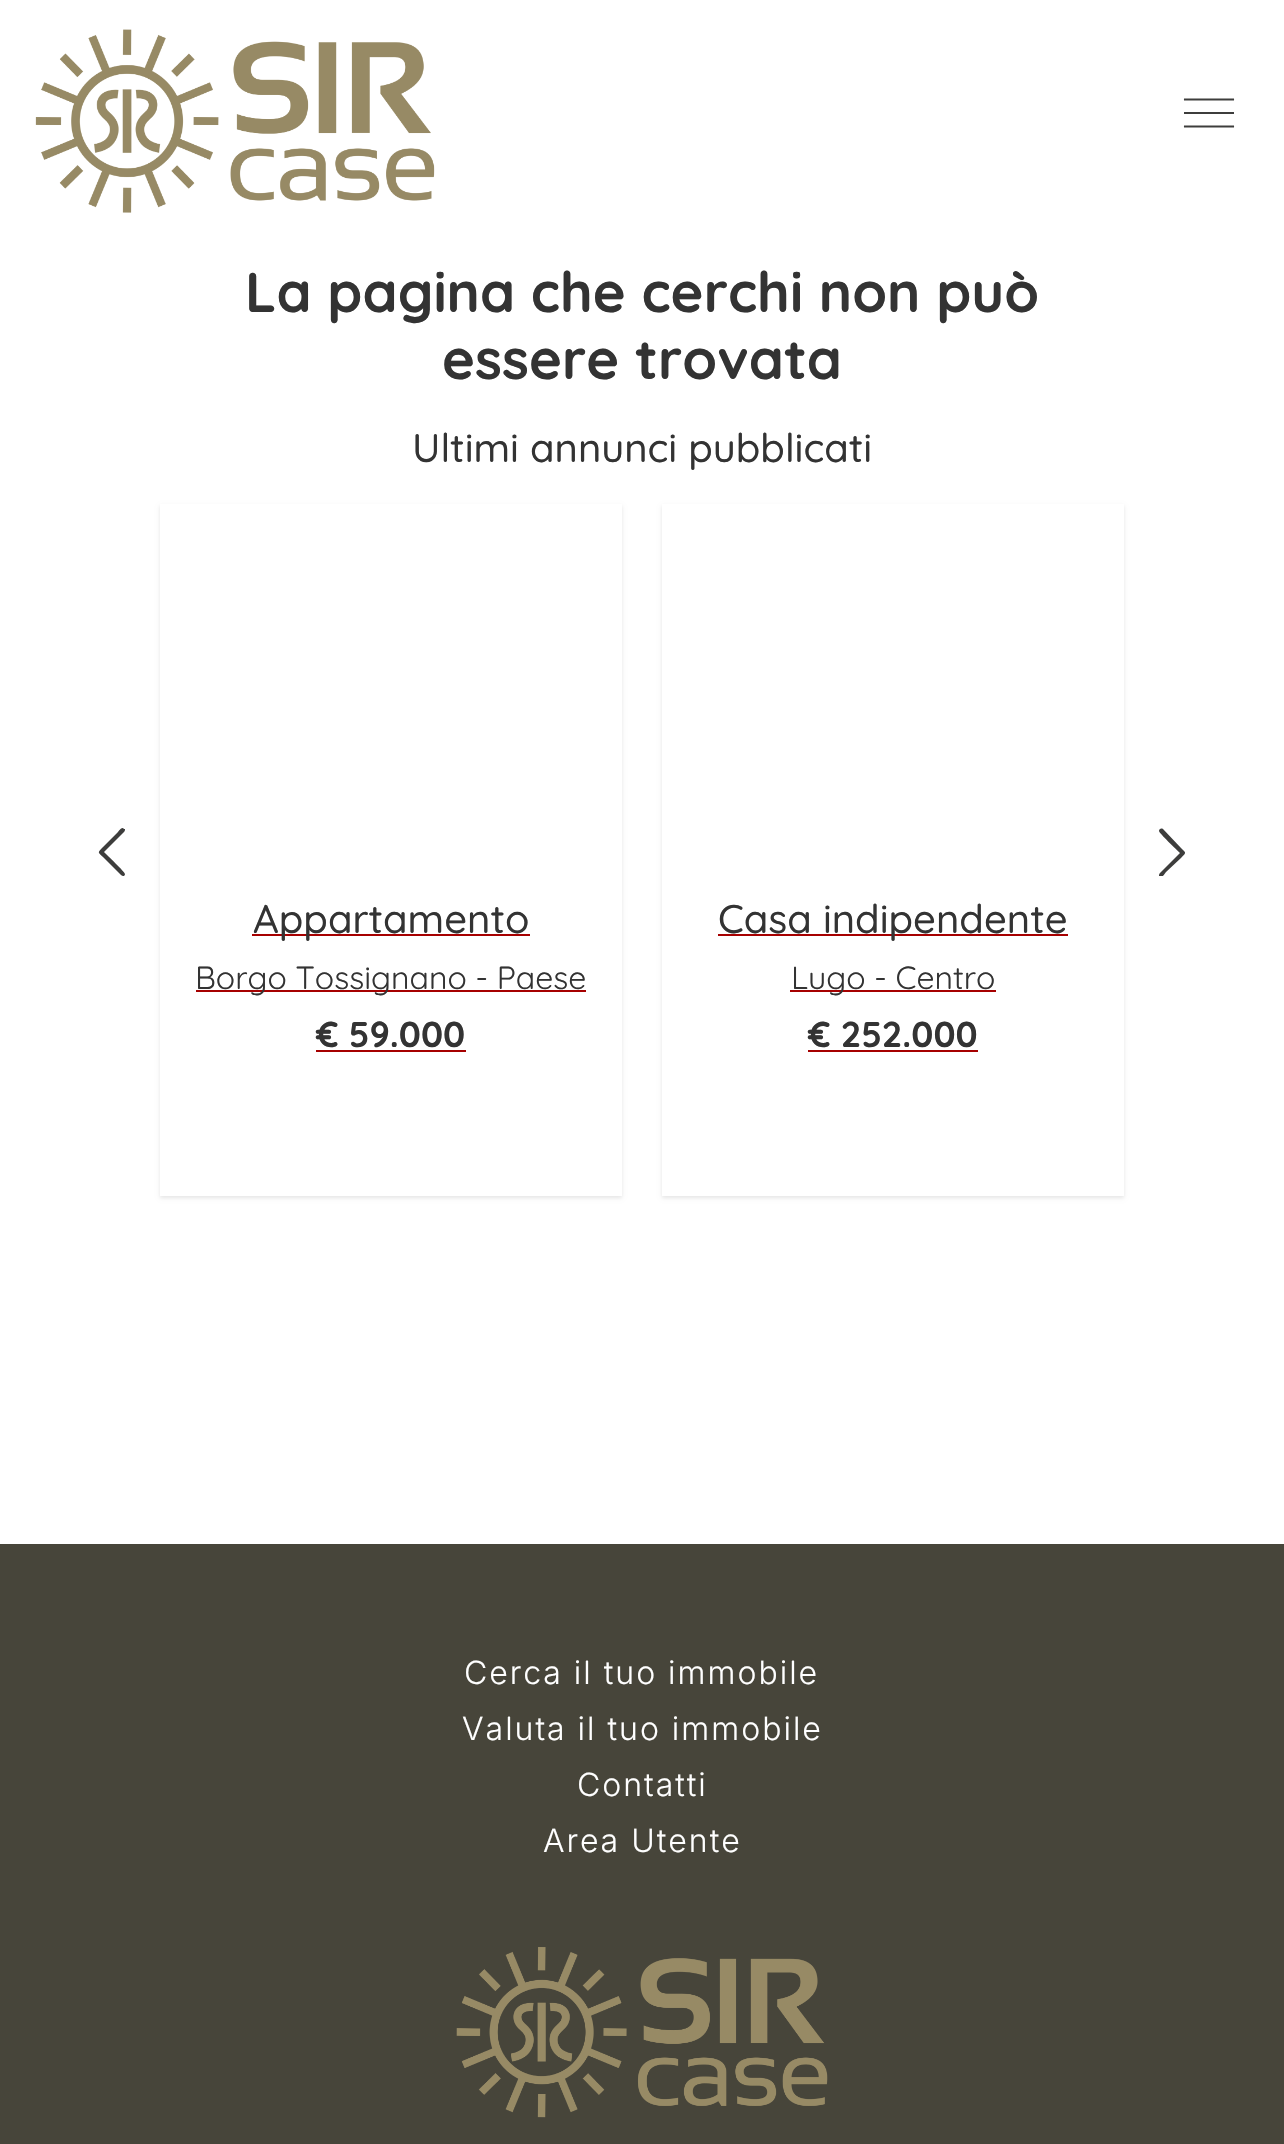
void draw(SkCanvas* canvas) {
	SkPaint paint;
	paint.setAntiAlias(true);
	auto spacedText = [&](const char* s, float x, float y, const SkFont& font, const SkPaint& ink, float letter, float word) {
		std::vector<SkGlyphID> glyphs(font.countText(s, strlen(s), SkTextEncoding::kUTF8));
		std::vector<float> xs(glyphs.size());
		font.textToGlyphs(s, strlen(s), SkTextEncoding::kUTF8, glyphs);
		font.getXPos(glyphs, xs, x);
		float extra = 0;
		for (size_t i = 0; i < glyphs.size(); i++) {
			xs[i] += extra;
			extra += letter + word * (glyphs[i] == font.unicharToGlyph(' '));
		}
		canvas->drawTextBlob(SkTextBlob::MakeFromPosHGlyphs(glyphs, xs, y, font), 0, 0, ink);
	};
	auto svgPath = [&](const char* data, bool evenOdd = false) {
		SkPath result = *SkParsePath::FromSVGString(data);
		if (evenOdd) result.setFillType(SkPathFillType::kEvenOdd);
		return result;
	};
	canvas->clear(0xffffffff);
	canvas->drawImageRect(SkImages::DeferredFromEncodedData(SkData::MakeFromFileName("img1.png")), SkRect::MakeXYWH(35, 29, 400, 184), SkSamplingOptions());
	paint.setStroke(true);
	paint.setStrokeWidth(2.1);
	paint.setStrokeCap(SkPaint::kSquare_Cap);
	paint.setColor(0xff3d3d3c);
	canvas->drawPath(svgPath("M1185 99.5H1233"), paint);
	paint.setStroke(false);
	canvas->drawRect(SkRect::MakeXYWH(1184, 112, 50, 2), paint);
	paint.setStroke(true);
	canvas->drawPath(svgPath("M1185 126.5H1233"), paint);
	SkFont f1(fontMgr->matchFamilyStyle("Quicksand", SkFontStyle::Bold()), 56);
	f1.setSubpixel(true);
	paint.setStroke(false);
	paint.setColor(0xff333333);
	canvas->drawString("La pagina che cerchi non può", 245, 312, f1, paint);
	canvas->drawString("essere trovata", 442, 379, f1, paint);
	SkFont f2(fontMgr->matchFamilyStyle("Quicksand", SkFontStyle(500, SkFontStyle::kNormal_Width, SkFontStyle::kUpright_Slant)), 40);
	f2.setSubpixel(true);
	canvas->drawString("Ultimi annunci pubblicati", 412, 462, f2, paint);
	paint.setColor(0xff3d3d3c);
	canvas->drawPath(svgPath("M124 829C122 826 119 831 118 832L103 847C97 853 98 852 103 857L121 875C123 877 125 876 125 874C125 872 107 855 104 852L124 832C125 831 125 830 125 829Z"), paint);
	canvas->save();
	canvas->clipRect(SkRect::MakeXYWH(1148, 828, 48, 48));
	canvas->drawPath(svgPath("M1160 876C1162 879 1165 873 1166 872L1181 858C1187 852 1186 853 1181 848L1163 829C1161 828 1159 829 1159 831C1159 833 1177 850 1180 853L1160 873C1159 874 1159 875 1159 876Z"), paint);
	canvas->restore();
	canvas->save();
	canvas->clipPath(svgPath("M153 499H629V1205H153ZM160 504H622V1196H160Z", true), true);
	paint.setColor(0x1a000000);
	paint.setMaskFilter(SkMaskFilter::MakeBlur(kNormal_SkBlurStyle, 2));
	canvas->drawRect(SkRect::MakeXYWH(160, 506, 462, 692), paint);
	paint.setMaskFilter(nullptr);
	canvas->restore();
	paint.setColor(0xffa60000);
	canvas->drawRect(SkRect::MakeXYWH(252, 934, 278, 2), paint);
	paint.setColor(0xff333333);
	canvas->drawString("Appartamento", 253, 933, f2, paint);
	paint.setColor(0xffa60000);
	canvas->drawRect(SkRect::MakeXYWH(196, 990, 390, 2), paint);
	SkFont f3(fontMgr->matchFamilyStyle("Quicksand", SkFontStyle::Normal()), 32);
	f3.setSubpixel(true);
	paint.setColor(0xff333333);
	canvas->drawString("Borgo Tossignano - Paese", 195, 989, f3, paint);
	SkFont f4(fontMgr->matchFamilyStyle("Quicksand", SkFontStyle::Bold()), 36);
	f4.setSubpixel(true);
	canvas->drawString("€ 59.000", 316, 1047, f4, paint);
	paint.setColor(0xffa60000);
	canvas->drawRect(SkRect::MakeXYWH(316, 1050, 150, 2), paint);
	canvas->save();
	canvas->clipPath(svgPath("M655 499H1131V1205H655ZM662 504H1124V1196H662Z", true), true);
	paint.setColor(0x1a000000);
	paint.setMaskFilter(SkMaskFilter::MakeBlur(kNormal_SkBlurStyle, 2));
	canvas->drawRect(SkRect::MakeXYWH(662, 506, 462, 692), paint);
	paint.setMaskFilter(nullptr);
	canvas->restore();
	paint.setColor(0xffa60000);
	canvas->drawRect(SkRect::MakeXYWH(718, 934, 350, 2), paint);
	paint.setColor(0xff333333);
	canvas->drawString("Casa indipendente", 718, 933, f2, paint);
	paint.setColor(0xffa60000);
	canvas->drawRect(SkRect::MakeXYWH(790, 990, 206, 2), paint);
	paint.setColor(0xff333333);
	canvas->drawString("Lugo - Centro", 791, 989, f3, paint);
	canvas->drawString("€ 252.000", 808, 1047, f4, paint);
	paint.setColor(0xffa60000);
	canvas->drawRect(SkRect::MakeXYWH(808, 1050, 170, 2), paint);
	paint.setColor(0xff47453a);
	canvas->drawRect(SkRect::MakeXYWH(0, 1544, 1284, 600), paint);
	SkFont f5(fontMgr->matchFamilyStyle("Inter", SkFontStyle(300, SkFontStyle::kNormal_Width, SkFontStyle::kUpright_Slant)), 32);
	f5.setSubpixel(true);
	paint.setColor(0xffffffff);
	spacedText("Cerca il tuo immobile", 464, 1684, f5, paint, 2, 0);
	spacedText("Valuta il tuo immobile", 462, 1740, f5, paint, 2, 0);
	spacedText("Contatti", 577, 1796, f5, paint, 2, 0);
	spacedText("Area Utente", 543, 1852, f5, paint, 2, 0);
	canvas->drawImageRect(SkImages::DeferredFromEncodedData(SkData::MakeFromFileName("img2.png")), SkRect::MakeXYWH(456, 1947, 372, 171), SkSamplingOptions());
}
